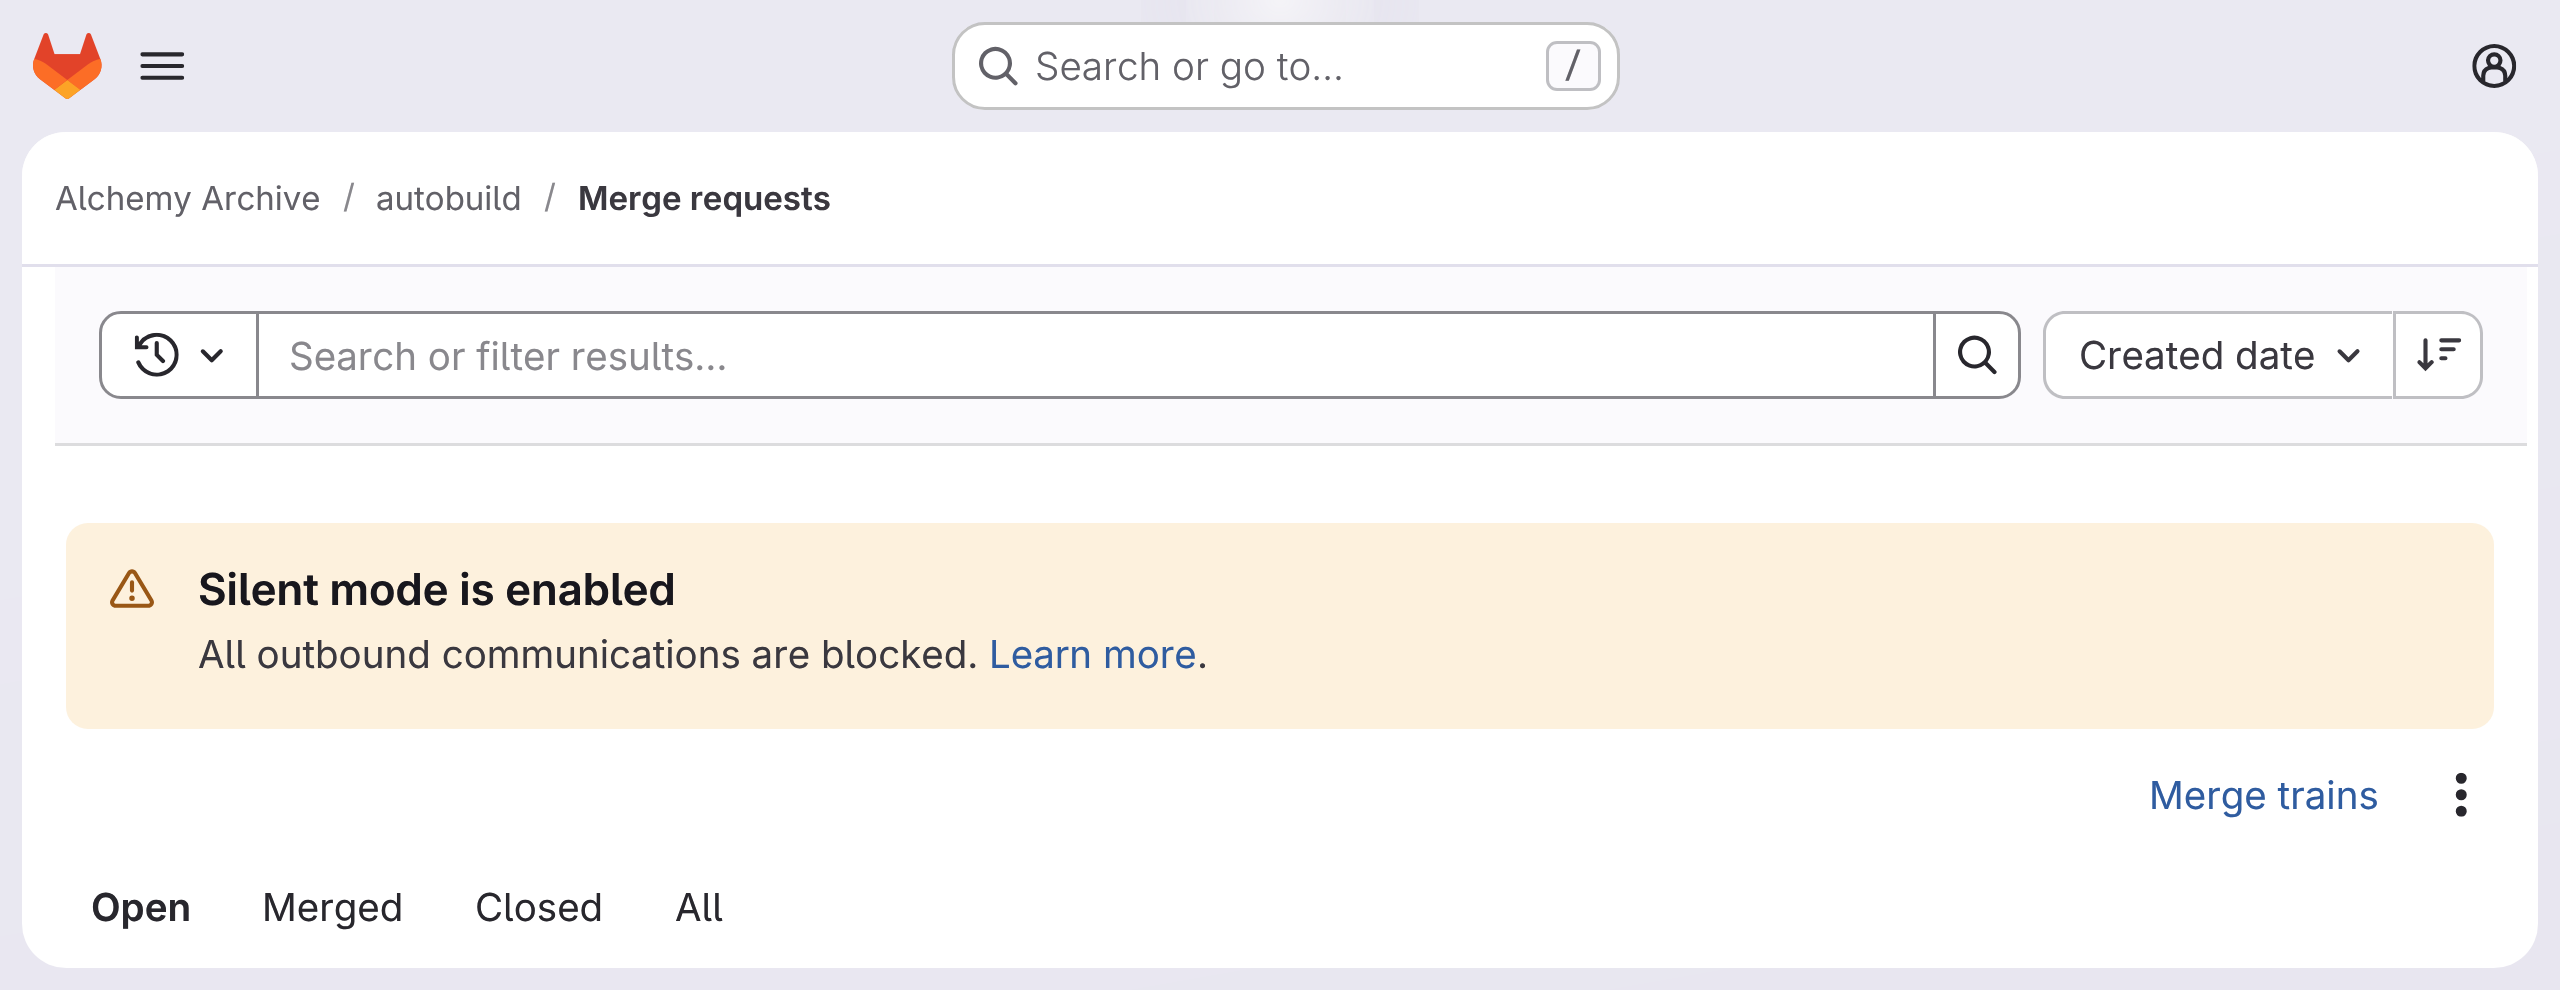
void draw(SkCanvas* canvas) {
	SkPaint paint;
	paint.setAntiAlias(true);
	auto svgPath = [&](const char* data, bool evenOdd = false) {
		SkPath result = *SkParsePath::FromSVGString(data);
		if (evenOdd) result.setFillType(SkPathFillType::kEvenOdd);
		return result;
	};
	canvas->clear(0xffffffff);
	{
		const SkColor colors[] = {0xffe8e6f0, 0xffeae9f2};
		const float stops[] = {0, 0.7};
		const SkPoint ends[] = {{1403, 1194}, {1157, -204}};
		paint.setShader(SkGradientShader::MakeLinear(ends, colors, stops, 2, SkTileMode::kClamp));
		paint.setAlpha(255);
	}
	canvas->drawRect(SkRect::MakeXYWH(0, 0, 2560, 990), paint);
	{
		const SkColor colors[] = {0xffe4e2ed, 0x00e4e2ed};
		const float stops[] = {0, 0.15};
		SkMatrix m = SkMatrix::Translate(1280, 0).preScale(1280, 990);
		paint.setShader(SkGradientShader::MakeRadial({0, 0}, 1, colors, stops, 2, SkTileMode::kClamp, 0, &m));
		paint.setAlpha(255);
	}
	canvas->drawRect(SkRect::MakeXYWH(1141, 0, 278, 107), paint);
	{
		const SkColor colors[] = {0xffe4e2ec, 0x00e4e2ec};
		const float stops[] = {0, 0.11};
		SkMatrix m = SkMatrix::Translate(1280, 0).preScale(1280, 990);
		paint.setShader(SkGradientShader::MakeRadial({0, 0}, 1, colors, stops, 2, SkTileMode::kClamp, 0, &m));
		paint.setAlpha(255);
	}
	canvas->drawRect(SkRect::MakeXYWH(1214, 0, 132, 22), paint);
	{
		const SkColor colors[] = {0x99ffffff, 0x00ffffff};
		const float stops[] = {0, 0.07};
		paint.setShader(SkGradientShader::MakeRadial({1280, 0}, 1618, colors, stops, 2, SkTileMode::kClamp));
		paint.setAlpha(255);
	}
	canvas->drawRect(SkRect::MakeXYWH(1186, 0, 188, 93), paint);
	canvas->drawImageRect(SkImages::DeferredFromEncodedData(SkData::MakeFromFileName("img1.png")), SkRect::MakeXYWH(33, 33, 69, 66), SkSamplingOptions());
	canvas->drawImageRect(SkImages::DeferredFromEncodedData(SkData::MakeFromFileName("img2.png")), SkRect::MakeXYWH(140, 52, 45, 28), SkSamplingOptions());
	paint.setShader(nullptr);
	paint.setColor(0xffffffff);
	canvas->drawRoundRect(SkRect::MakeXYWH(952, 22, 668, 88), 33, 33, paint);
	paint.setStroke(true);
	paint.setStrokeWidth(3);
	paint.setColor(0x3d050506);
	canvas->drawRoundRect(SkRect::MakeXYWH(953.5, 23.5, 665, 85), 31.5, 31.5, paint);
	canvas->drawImageRect(SkImages::DeferredFromEncodedData(SkData::MakeFromFileName("img3.png")), SkRect::MakeXYWH(979, 46, 39, 40), SkSamplingOptions());
	SkFont f1(fontMgr->matchFamilyStyle("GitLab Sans", SkFontStyle(300, SkFontStyle::kNormal_Width, SkFontStyle::kUpright_Slant)), 38.5);
	f1.setSubpixel(true);
	paint.setStroke(false);
	paint.setColor(0xff626168);
	canvas->drawString("Search or go to…", 1035, 80, f1, paint);
	paint.setColor(0xfffbfafd);
	canvas->drawRoundRect(SkRect::MakeXYWH(1547.5, 42.5, 52, 47), 9.5, 9.5, paint);
	paint.setStroke(true);
	paint.setColor(0xffbfbfc3);
	canvas->drawRoundRect(SkRect::MakeXYWH(1547.5, 42.5, 52, 47), 9.5, 9.5, paint);
	SkFont f2(fontMgr->matchFamilyStyle("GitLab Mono", SkFontStyle(500, SkFontStyle::kNormal_Width, SkFontStyle::kUpright_Slant)), 33);
	f2.setSubpixel(true);
	paint.setStroke(false);
	paint.setColor(0xff626168);
	canvas->drawString("/", 1563, 77, f2, paint);
	canvas->drawImageRect(SkImages::DeferredFromEncodedData(SkData::MakeFromFileName("img4.png")), SkRect::MakeXYWH(2472, 44, 45, 44), SkSamplingOptions());
	paint.setColor(0xffffffff);
	canvas->drawRoundRect(SkRect::MakeXYWH(22, 132, 2516, 836), 44, 44, paint);
	canvas->drawPath(svgPath("M66 132H2494C2518.5 132 2538 151.5 2538 176V267H22V176C22 151.5 41.5 132 66 132Z"), paint);
	paint.setColor(0xffe1dfec);
	canvas->drawRect(SkRect::MakeXYWH(22, 264, 2516, 3), paint);
	SkFont f3(fontMgr->matchFamilyStyle("GitLab Sans", SkFontStyle::Normal()), 33);
	f3.setSubpixel(true);
	paint.setColor(0xff626168);
	canvas->drawString("Alchemy Archive", 55, 210, f3, paint);
	paint.setColor(0xff89888d);
	canvas->drawString("/", 343, 208, f3, paint);
	paint.setColor(0xff626168);
	canvas->drawString("autobuild", 376, 210, f3, paint);
	paint.setColor(0xff89888d);
	canvas->drawString("/", 544, 208, f3, paint);
	SkFont f4(fontMgr->matchFamilyStyle("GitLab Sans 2", SkFontStyle(600, SkFontStyle::kNormal_Width, SkFontStyle::kUpright_Slant)), 33);
	f4.setSubpixel(true);
	paint.setColor(0xff3a383f);
	canvas->drawString("Merge requests", 578, 210, f4, paint);
	paint.setColor(0xfffbfafd);
	canvas->drawRect(SkRect::MakeXYWH(55, 267, 2472, 176), paint);
	paint.setColor(0xffdcdcde);
	canvas->drawRect(SkRect::MakeXYWH(55, 443, 2472, 3), paint);
	paint.setColor(0xffffffff);
	canvas->drawRect(SkRect::MakeXYWH(257.5, 312.5, 1677, 85), paint);
	paint.setStroke(true);
	paint.setColor(0xff89888d);
	canvas->drawRect(SkRect::MakeXYWH(257.5, 312.5, 1677, 85), paint);
	paint.setStroke(false);
	paint.setColor(0xffffffff);
	canvas->drawPath(svgPath("M121 312.5H257.5V397.5H121C109.5 397.5 100.5 388.5 100.5 377V333C100.5 321.5 109.5 312.5 121 312.5Z"), paint);
	paint.setStroke(true);
	paint.setColor(0xff89888d);
	canvas->drawPath(svgPath("M121 312.5H257.5V397.5H121C109.5 397.5 100.5 388.5 100.5 377V333C100.5 321.5 109.5 312.5 121 312.5Z"), paint);
	canvas->drawImageRect(SkImages::DeferredFromEncodedData(SkData::MakeFromFileName("img5.png")), SkRect::MakeXYWH(134, 332, 45, 45), SkSamplingOptions());
	canvas->drawImageRect(SkImages::DeferredFromEncodedData(SkData::MakeFromFileName("img6.png")), SkRect::MakeXYWH(200, 349, 23, 14), SkSamplingOptions());
	SkFont f5(fontMgr->matchFamilyStyle("GitLab Sans", SkFontStyle::Normal()), 38.5);
	f5.setSubpixel(true);
	paint.setStroke(false);
	canvas->drawString("Search or filter results…", 289, 370, f5, paint);
	paint.setColor(0xffffffff);
	canvas->drawPath(svgPath("M1934.5 312.5H1999C2010.5 312.5 2019.5 321.5 2019.5 333V377C2019.5 388.5 2010.5 397.5 1999 397.5H1934.5Z"), paint);
	paint.setStroke(true);
	paint.setColor(0xff89888d);
	canvas->drawPath(svgPath("M1934.5 312.5H1999C2010.5 312.5 2019.5 321.5 2019.5 333V377C2019.5 388.5 2010.5 397.5 1999 397.5H1934.5Z"), paint);
	canvas->drawImageRect(SkImages::DeferredFromEncodedData(SkData::MakeFromFileName("img7.png")), SkRect::MakeXYWH(1958, 335, 39, 40), SkSamplingOptions());
	paint.setStroke(false);
	paint.setColor(0xffffffff);
	canvas->drawPath(svgPath("M2065 314H2393V396H2065C2054.5 396 2046 387.5 2046 377V333C2046 322.5 2054.5 314 2065 314Z"), paint);
	paint.setColor(0xffbfbfc3);
	canvas->drawPath(svgPath("M2065 311H2392V399H2065C2053 399 2043 389 2043 377V333C2043 321 2053 311 2065 311ZM2065 314H2392V396H2065C2055 396 2046 387 2046 377V333C2046 322 2055 314 2065 314Z", true), paint);
	paint.setColor(0xff3a383f);
	canvas->drawString("Created date", 2079, 369, f5, paint);
	canvas->drawImageRect(SkImages::DeferredFromEncodedData(SkData::MakeFromFileName("img8.png")), SkRect::MakeXYWH(2337, 349, 23, 14), SkSamplingOptions());
	paint.setColor(0xffffffff);
	canvas->drawPath(svgPath("M2395 314H2462C2472.5 314 2481 322.5 2481 333V377C2481 387.5 2472.5 396 2462 396H2395Z"), paint);
	paint.setColor(0xffbfbfc3);
	canvas->drawPath(svgPath("M2395 311H2461C2473 311 2483 321 2483 333V377C2483 389 2473 399 2461 399H2395ZM2395 314H2461C2472 314 2480 322 2480 333V377C2480 387 2472 396 2461 396H2395Z", true), paint);
	canvas->drawRect(SkRect::MakeXYWH(2393, 311, 3, 88), paint);
	canvas->drawImageRect(SkImages::DeferredFromEncodedData(SkData::MakeFromFileName("img9.png")), SkRect::MakeXYWH(2417, 338, 45, 34), SkSamplingOptions());
	paint.setColor(0xff2f5ca0);
	canvas->drawString("Merge trains", 2149, 809, f5, paint);
	canvas->drawImageRect(SkImages::DeferredFromEncodedData(SkData::MakeFromFileName("img10.png")), SkRect::MakeXYWH(2455, 772, 12, 45), SkSamplingOptions());
	SkFont f6(fontMgr->matchFamilyStyle("GitLab Sans 2", SkFontStyle(600, SkFontStyle::kNormal_Width, SkFontStyle::kUpright_Slant)), 38.5);
	f6.setSubpixel(true);
	paint.setColor(0xff28272d);
	canvas->drawString("Open", 91, 921, f6, paint);
	canvas->drawString("Merged", 262, 921, f5, paint);
	canvas->drawString("Closed", 475, 921, f5, paint);
	canvas->drawString("All", 675, 921, f5, paint);
	paint.setColor(0xfffdf1dd);
	canvas->drawRoundRect(SkRect::MakeXYWH(66, 523, 2428, 206), 22, 22, paint);
	canvas->drawImageRect(SkImages::DeferredFromEncodedData(SkData::MakeFromFileName("img11.png")), SkRect::MakeXYWH(110, 569, 44, 39), SkSamplingOptions());
	SkFont f7(fontMgr->matchFamilyStyle("GitLab Sans", SkFontStyle(600, SkFontStyle::kNormal_Width, SkFontStyle::kUpright_Slant)), 44);
	f7.setSubpixel(true);
	paint.setColor(0xff18171d);
	canvas->drawString("Silent mode is enabled", 198, 605, f7, paint);
	paint.setColor(0xff3a383f);
	canvas->drawString("All outbound communications are blocked.", 198, 668, f5, paint);
	paint.setColor(0xff2f5ca0);
	canvas->drawString("Learn more", 989, 668, f5, paint);
	paint.setColor(0xff3a383f);
	canvas->drawString(".", 1197, 668, f5, paint);
}
